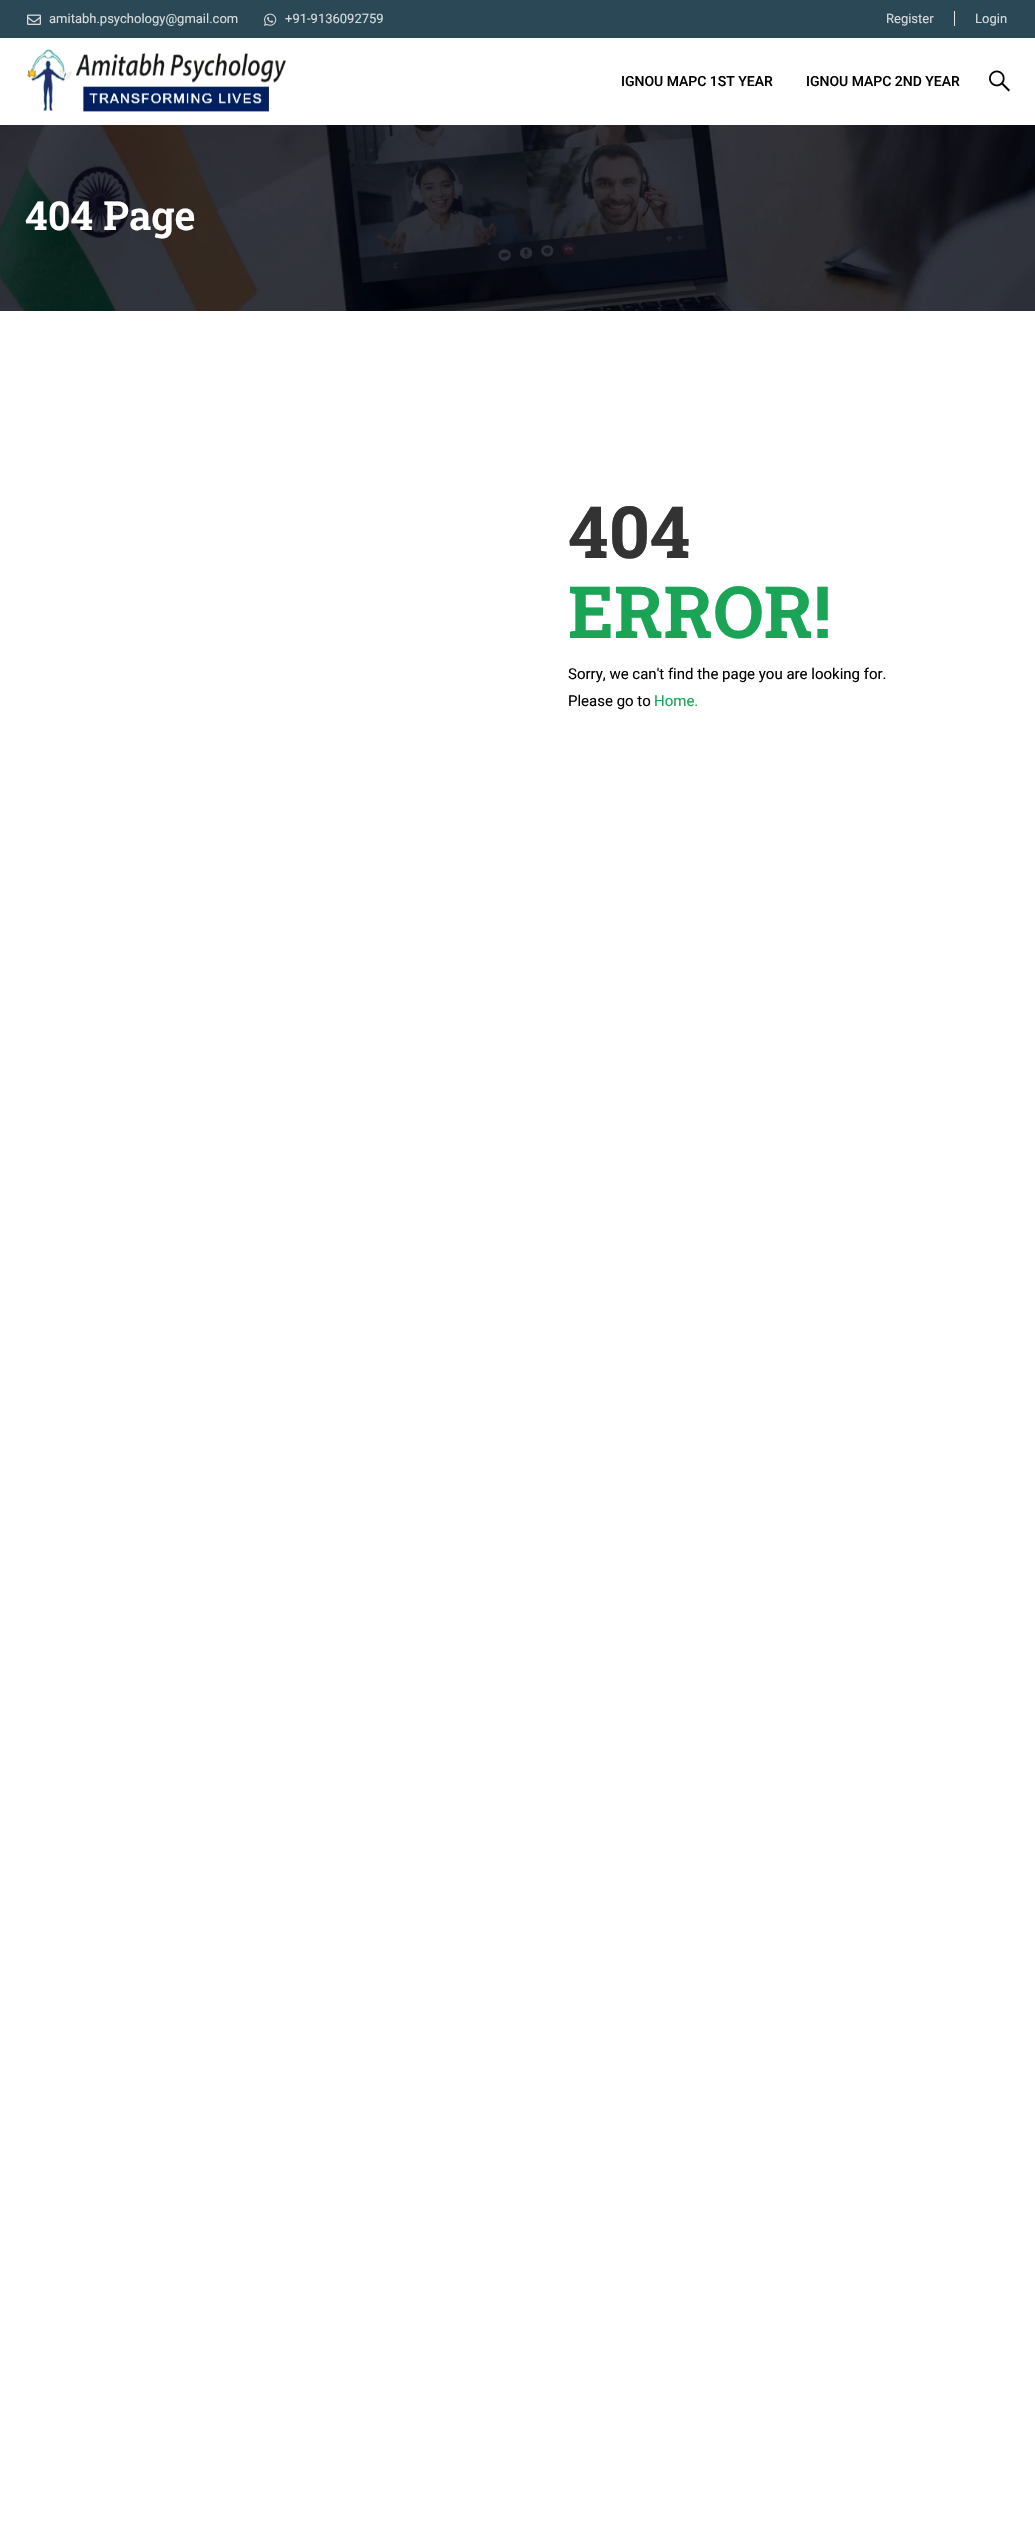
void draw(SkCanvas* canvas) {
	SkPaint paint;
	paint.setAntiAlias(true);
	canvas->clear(0xffffffff);
	paint.setColor(0xff2a4856);
	canvas->drawRect(SkRect::MakeXYWH(0, 0, 1035, 38), paint);
	canvas->drawImageRect(SkImages::DeferredFromEncodedData(SkData::MakeFromFileName("img1.png")), SkRect::MakeXYWH(27, 14, 14, 11), SkSamplingOptions());
	SkFont f1(fontMgr->matchFamilyStyle("Roboto", SkFontStyle::Normal()), 13);
	f1.setSubpixel(true);
	paint.setColor(0xffd9dcde);
	canvas->drawString("amitabh.psychology@gmail.com", 49, 23, f1, paint);
	canvas->drawImageRect(SkImages::DeferredFromEncodedData(SkData::MakeFromFileName("img2.png")), SkRect::MakeXYWH(264, 13, 13, 13), SkSamplingOptions());
	canvas->drawString("+91-9136092759", 285, 23, f1, paint);
	canvas->drawString("Register", 886, 23, f1, paint);
	paint.setColor(0xffe7e7e7);
	canvas->drawRect(SkRect::MakeXYWH(954, 11, 1, 15), paint);
	paint.setColor(0xffd9dcde);
	canvas->drawString("Login", 975, 23, f1, paint);
	canvas->drawImageRect(SkImages::DeferredFromEncodedData(SkData::MakeFromFileName("img3.png")), SkRect::MakeXYWH(27, 49, 260, 63), SkSamplingOptions());
	SkFont f2(fontMgr->matchFamilyStyle("Roboto", SkFontStyle(500, SkFontStyle::kNormal_Width, SkFontStyle::kUpright_Slant)), 14);
	f2.setSubpixel(true);
	paint.setColor(0xff000000);
	canvas->drawString("IGNOU MAPC 1ST YEAR", 621, 86, f2, paint);
	canvas->drawString("IGNOU MAPC 2ND YEAR", 806, 86, f2, paint);
	canvas->drawImageRect(SkImages::DeferredFromEncodedData(SkData::MakeFromFileName("img4.png")), SkRect::MakeXYWH(989, 70, 21, 22), SkSamplingOptions());
	canvas->drawImageRect(SkImages::DeferredFromEncodedData(SkData::MakeFromFileName("img5.png")), SkRect::MakeXYWH(0, 125, 1035, 186), SkSamplingOptions());
	SkFont f3(fontMgr->matchFamilyStyle("Roboto Slab", SkFontStyle(600, SkFontStyle::kNormal_Width, SkFontStyle::kUpright_Slant)), 40);
	f3.setSubpixel(true);
	paint.setColor(0xffffffff);
	canvas->drawString("404 Page", 25, 230, f3, paint);
	SkFont f4(fontMgr->matchFamilyStyle("Roboto Slab", SkFontStyle::Bold()), 72);
	f4.setSubpixel(true);
	paint.setColor(0xff333333);
	canvas->drawString("404", 568, 558, f4, paint);
	paint.setColor(0xff19a456);
	canvas->drawString("ERROR!", 568, 638, f4, paint);
	SkFont f5(fontMgr->matchFamilyStyle("Roboto", SkFontStyle::Normal()), 15);
	f5.setSubpixel(true);
	paint.setColor(0xff000000);
	canvas->drawString("Sorry, we can't find the page you are looking for.", 568, 679, f5, paint);
	canvas->drawString("Please go to", 568, 706, f5, paint);
	paint.setColor(0xff19a456);
	canvas->drawString("Home.", 654, 706, f5, paint);
}
